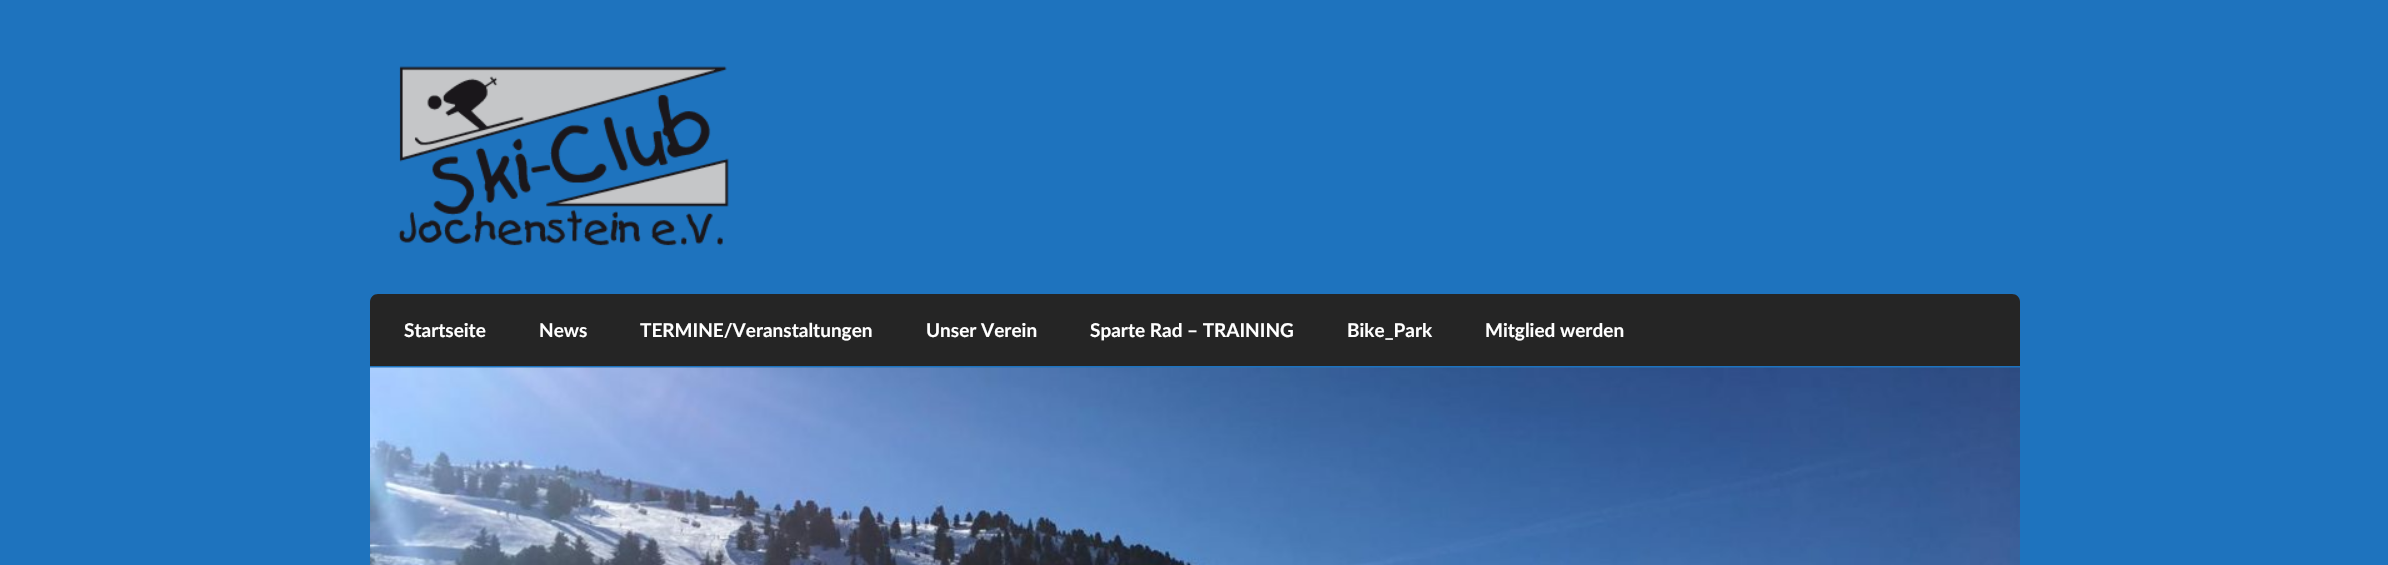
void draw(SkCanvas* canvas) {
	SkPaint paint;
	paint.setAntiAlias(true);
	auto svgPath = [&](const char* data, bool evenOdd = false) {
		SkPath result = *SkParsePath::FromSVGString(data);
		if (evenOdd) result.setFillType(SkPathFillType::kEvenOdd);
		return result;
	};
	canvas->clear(0xff1e73be);
	canvas->drawImageRect(SkImages::DeferredFromEncodedData(SkData::MakeFromFileName("img1.png")), SkRect::MakeXYWH(398, 66, 331, 180), SkSamplingOptions());
	paint.setColor(0xff252525);
	canvas->drawPath(svgPath("M378 294H2012C2016.5 294 2020 297.5 2020 302V366H370V302C370 297.5 373.5 294 378 294Z"), paint);
	SkFont f1(fontMgr->matchFamilyStyle("Lato", SkFontStyle::Bold()), 19);
	f1.setSubpixel(true);
	paint.setColor(0xffffffff);
	canvas->drawString("Startseite", 404, 337, f1, paint);
	canvas->drawString("News", 539, 337, f1, paint);
	canvas->drawString("TERMINE/Veranstaltungen", 640, 337, f1, paint);
	canvas->drawString("Unser Verein", 926, 337, f1, paint);
	canvas->drawString("Sparte Rad – TRAINING", 1090, 337, f1, paint);
	canvas->drawString("Bike_Park", 1347, 337, f1, paint);
	canvas->drawString("Mitglied werden", 1485, 337, f1, paint);
	canvas->drawImageRect(SkImages::DeferredFromEncodedData(SkData::MakeFromFileName("img2.png")), SkRect::MakeXYWH(370, 367, 1650, 198), SkSamplingOptions());
}
